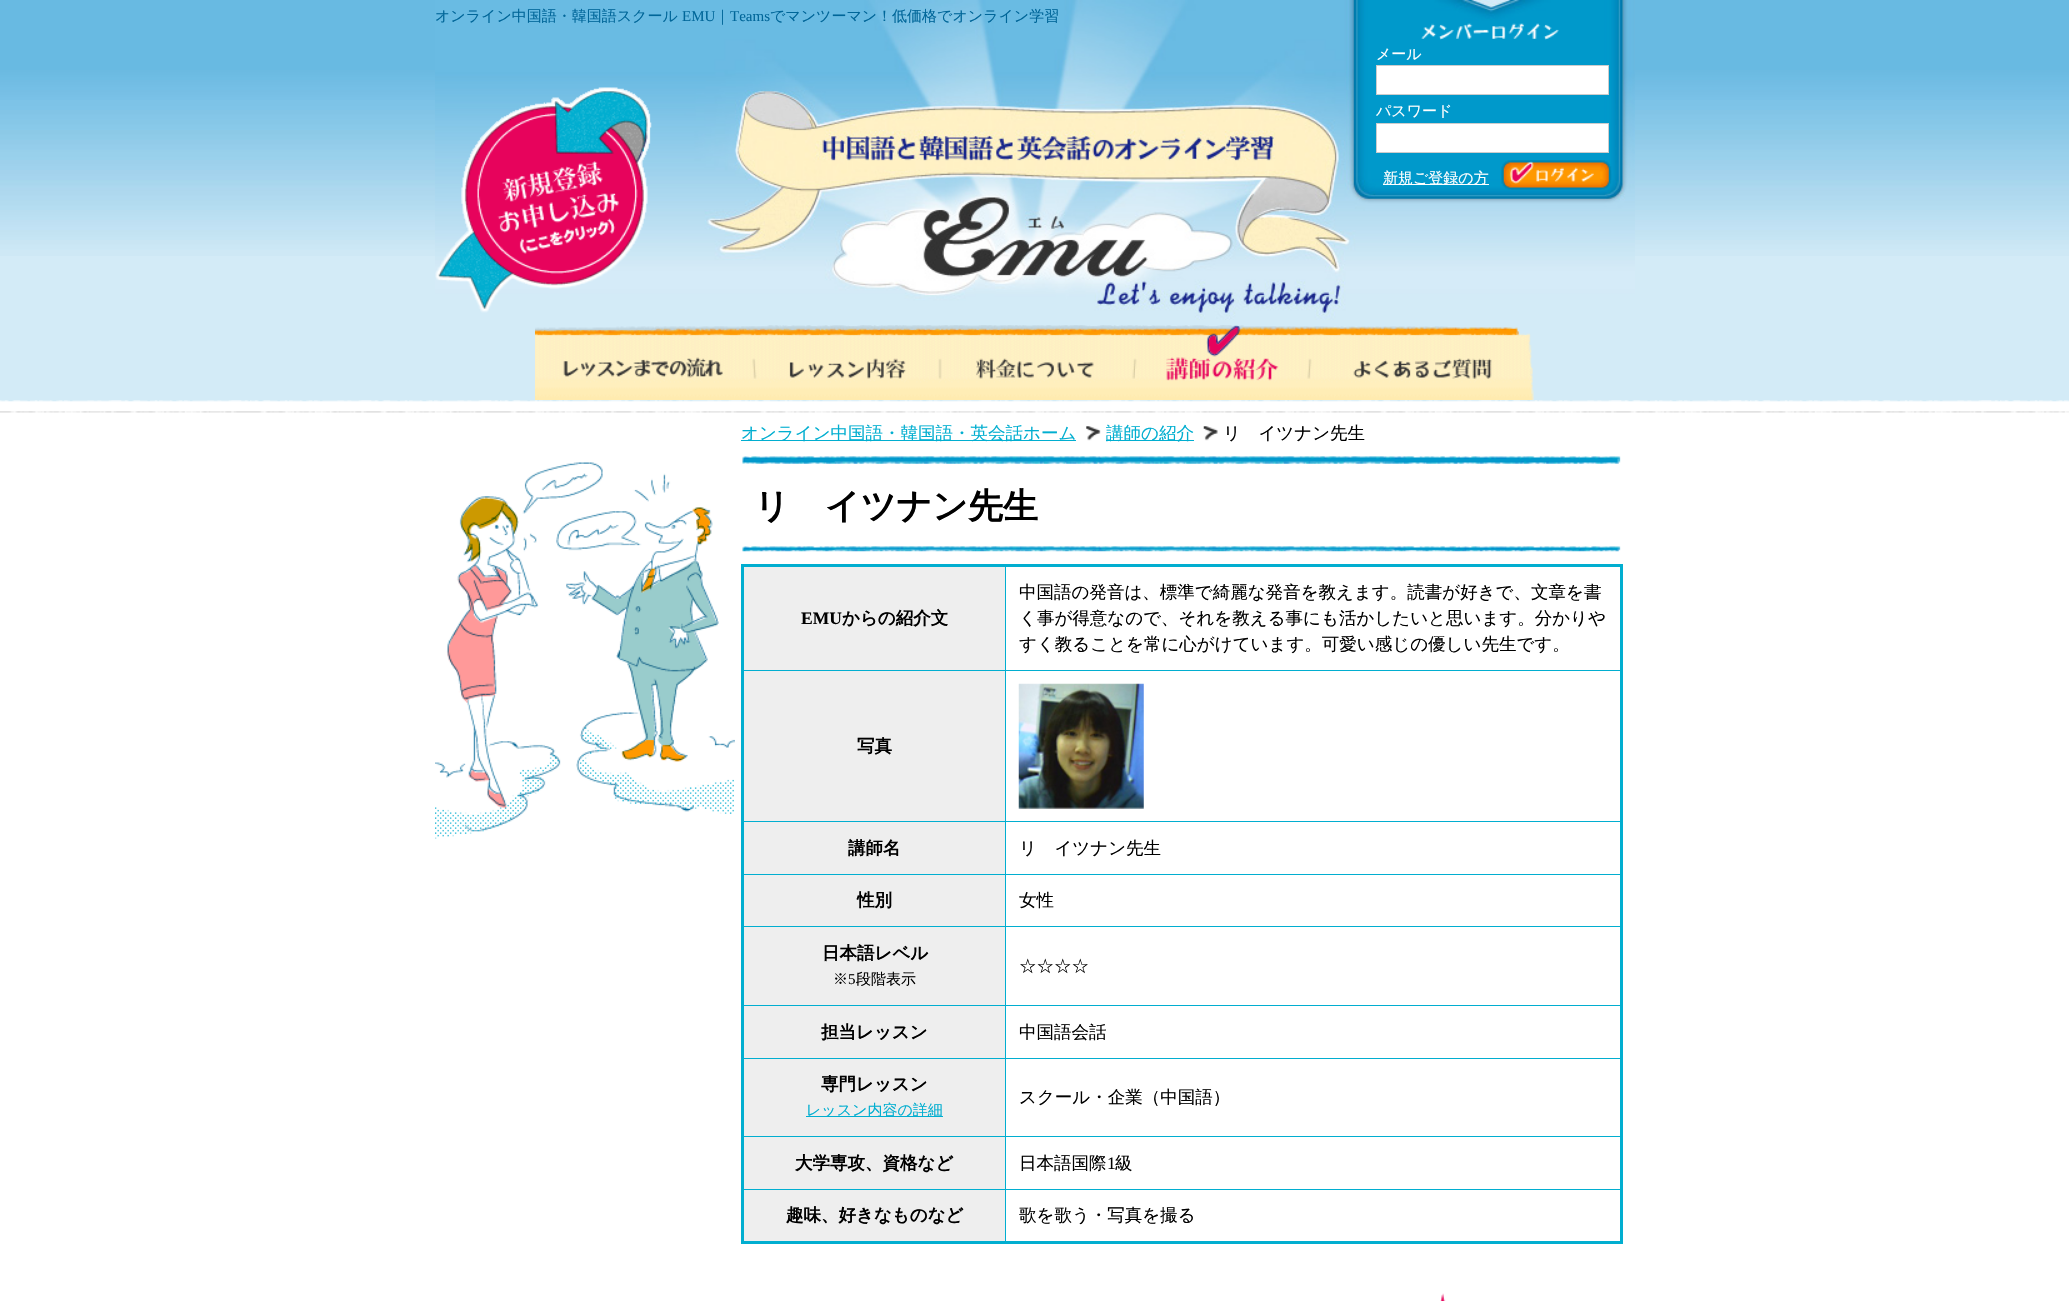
void draw(SkCanvas* canvas) {
	SkPaint paint;
	paint.setAntiAlias(true);
	canvas->clear(0xffd3ebf7);
	canvas->drawImageRect(SkImages::DeferredFromEncodedData(SkData::MakeFromFileName("img1.png")), SkRect::MakeXYWH(0, 0, 2069, 256), SkSamplingOptions());
	canvas->drawImageRect(SkImages::DeferredFromEncodedData(SkData::MakeFromFileName("img2.png")), SkRect::MakeXYWH(435, 0, 1200, 320), SkSamplingOptions());
	SkFont f1(fontMgr->matchFamilyStyle("WenQuanYi Zen Hei", SkFontStyle(500, SkFontStyle::kNormal_Width, SkFontStyle::kUpright_Slant)), 15);
	f1.setSubpixel(true);
	paint.setColor(0xff006699);
	canvas->drawString("オンライン中国語・韓国語スクール", 435, 21, f1, paint);
	SkFont f2(fontMgr->matchFamilyStyle("Liberation Serif", SkFontStyle::Normal()), 15);
	f2.setSubpixel(true);
	canvas->drawString("EMU", 682, 21, f2, paint);
	canvas->drawString("｜", 715, 21, f1, paint);
	canvas->drawString("Teams", 730, 21, f2, paint);
	canvas->drawString("でマンツーマン！低価格でオンライン学習", 770, 21, f1, paint);
	canvas->drawImageRect(SkImages::DeferredFromEncodedData(SkData::MakeFromFileName("img3.png")), SkRect::MakeXYWH(435, 87, 217, 226), SkSamplingOptions());
	canvas->drawImageRect(SkImages::DeferredFromEncodedData(SkData::MakeFromFileName("img4.png")), SkRect::MakeXYWH(1421, 23, 138, 17), SkSamplingOptions());
	paint.setColor(0xffffffff);
	canvas->drawString("メール", 1376, 59, f1, paint);
	canvas->drawRect(SkRect::MakeXYWH(1376.5, 65.5, 232, 29), paint);
	paint.setStroke(true);
	paint.setStrokeWidth(1);
	paint.setColor(0xffcccccc);
	canvas->drawRect(SkRect::MakeXYWH(1376.5, 65.5, 232, 29), paint);
	paint.setStroke(false);
	paint.setColor(0xffffffff);
	canvas->drawString("パスワード", 1376, 116, f1, paint);
	canvas->drawRect(SkRect::MakeXYWH(1376.5, 123.5, 232, 29), paint);
	paint.setStroke(true);
	paint.setColor(0xffcccccc);
	canvas->drawRect(SkRect::MakeXYWH(1376.5, 123.5, 232, 29), paint);
	paint.setStroke(false);
	paint.setColor(0xffffffff);
	canvas->drawRect(SkRect::MakeXYWH(1383, 184, 106, 1), paint);
	canvas->drawString("新規ご登録の方", 1383, 183, f1, paint);
	canvas->drawImageRect(SkImages::DeferredFromEncodedData(SkData::MakeFromFileName("img5.png")), SkRect::MakeXYWH(1501, 160, 111, 30), SkSamplingOptions());
	canvas->drawImageRect(SkImages::DeferredFromEncodedData(SkData::MakeFromFileName("img6.png")), SkRect::MakeXYWH(535, 326, 200, 74), SkSamplingOptions());
	canvas->drawImageRect(SkImages::DeferredFromEncodedData(SkData::MakeFromFileName("img7.png")), SkRect::MakeXYWH(735, 325, 200, 75), SkSamplingOptions());
	canvas->drawImageRect(SkImages::DeferredFromEncodedData(SkData::MakeFromFileName("img8.png")), SkRect::MakeXYWH(935, 325, 200, 75), SkSamplingOptions());
	canvas->drawImageRect(SkImages::DeferredFromEncodedData(SkData::MakeFromFileName("img9.png")), SkRect::MakeXYWH(1135, 325, 200, 75), SkSamplingOptions());
	canvas->drawImageRect(SkImages::DeferredFromEncodedData(SkData::MakeFromFileName("img10.png")), SkRect::MakeXYWH(1335, 326, 199, 74), SkSamplingOptions());
	canvas->drawRect(SkRect::MakeXYWH(0, 412, 2069, 889), paint);
	canvas->drawImageRect(SkImages::DeferredFromEncodedData(SkData::MakeFromFileName("img11.png")), SkRect::MakeXYWH(0, 400, 2069, 13), SkSamplingOptions());
	canvas->drawImageRect(SkImages::DeferredFromEncodedData(SkData::MakeFromFileName("img12.png")), SkRect::MakeXYWH(435, 462, 300, 377), SkSamplingOptions());
	paint.setColor(0xff01aed0);
	canvas->drawRect(SkRect::MakeXYWH(741, 440, 335, 1), paint);
	SkFont f3(fontMgr->matchFamilyStyle("WenQuanYi Zen Hei", SkFontStyle(500, SkFontStyle::kNormal_Width, SkFontStyle::kUpright_Slant)), 17.5);
	f3.setSubpixel(true);
	canvas->drawString("オンライン中国語・韓国語・英会話ホーム", 741, 439, f3, paint);
	canvas->drawImageRect(SkImages::DeferredFromEncodedData(SkData::MakeFromFileName("img13.png")), SkRect::MakeXYWH(1086, 426, 15, 15), SkSamplingOptions());
	canvas->drawRect(SkRect::MakeXYWH(1106, 440, 88, 1), paint);
	canvas->drawString("講師の紹介", 1106, 439, f3, paint);
	canvas->drawImageRect(SkImages::DeferredFromEncodedData(SkData::MakeFromFileName("img14.png")), SkRect::MakeXYWH(1203, 426, 15, 15), SkSamplingOptions());
	paint.setColor(0xff000000);
	canvas->drawString("リ　イツナン先生", 1223, 439, f3, paint);
	canvas->drawImageRect(SkImages::DeferredFromEncodedData(SkData::MakeFromFileName("img15.png")), SkRect::MakeXYWH(742, 456, 879, 96), SkSamplingOptions());
	SkFont f4(fontMgr->matchFamilyStyle("WenQuanYi Zen Hei", SkFontStyle::Bold()), 35);
	f4.setSubpixel(true);
	canvas->drawString("リ　イツナン先生", 754, 518, f4, paint);
	paint.setColor(0xff01aed0);
	canvas->drawRect(SkRect::MakeXYWH(1005, 670, 618, 1), paint);
	paint.setColor(0xffeeeeee);
	canvas->drawRect(SkRect::MakeXYWH(744, 671, 261, 203), paint);
	paint.setColor(0xff01aed0);
	canvas->drawRect(SkRect::MakeXYWH(1005, 821, 618, 1), paint);
	canvas->drawRect(SkRect::MakeXYWH(1005, 874, 618, 1), paint);
	paint.setColor(0xffeeeeee);
	canvas->drawRect(SkRect::MakeXYWH(744, 875, 261, 130), paint);
	paint.setColor(0xff01aed0);
	canvas->drawRect(SkRect::MakeXYWH(1005, 926, 618, 1), paint);
	canvas->drawRect(SkRect::MakeXYWH(1005, 1005, 618, 1), paint);
	canvas->drawRect(SkRect::MakeXYWH(1005, 1058, 618, 1), paint);
	paint.setColor(0xffeeeeee);
	canvas->drawRect(SkRect::MakeXYWH(744, 1059, 261, 130), paint);
	paint.setColor(0xff01aed0);
	canvas->drawRect(SkRect::MakeXYWH(1005, 1136, 618, 1), paint);
	canvas->drawRect(SkRect::MakeXYWH(1005, 1189, 618, 1), paint);
	canvas->drawRect(SkRect::MakeXYWH(1005, 1189, 1, 55), paint);
	canvas->drawRect(SkRect::MakeXYWH(743, 1189, 263, 1), paint);
	canvas->drawRect(SkRect::MakeXYWH(1005, 1136, 1, 54), paint);
	canvas->drawRect(SkRect::MakeXYWH(743, 1136, 263, 1), paint);
	canvas->drawRect(SkRect::MakeXYWH(1005, 1058, 1, 80), paint);
	canvas->drawRect(SkRect::MakeXYWH(743, 1058, 263, 1), paint);
	canvas->drawRect(SkRect::MakeXYWH(1005, 1005, 1, 54), paint);
	canvas->drawRect(SkRect::MakeXYWH(743, 1005, 263, 1), paint);
	canvas->drawRect(SkRect::MakeXYWH(1005, 926, 1, 80), paint);
	canvas->drawRect(SkRect::MakeXYWH(743, 926, 263, 1), paint);
	canvas->drawRect(SkRect::MakeXYWH(1005, 874, 1, 54), paint);
	canvas->drawRect(SkRect::MakeXYWH(743, 874, 263, 1), paint);
	canvas->drawRect(SkRect::MakeXYWH(1005, 821, 1, 54), paint);
	canvas->drawRect(SkRect::MakeXYWH(743, 821, 263, 1), paint);
	canvas->drawRect(SkRect::MakeXYWH(1005, 670, 1, 153), paint);
	canvas->drawRect(SkRect::MakeXYWH(743, 670, 263, 1), paint);
	canvas->drawRect(SkRect::MakeXYWH(1005, 565, 1, 106), paint);
	canvas->drawRect(SkRect::MakeXYWH(741, 564, 882, 3), paint);
	canvas->drawRect(SkRect::MakeXYWH(1620, 564, 3, 680), paint);
	canvas->drawRect(SkRect::MakeXYWH(741, 1241, 882, 3), paint);
	canvas->drawRect(SkRect::MakeXYWH(741, 564, 3, 680), paint);
	paint.setColor(0xffeeeeee);
	canvas->drawRect(SkRect::MakeXYWH(744, 567, 261, 103), paint);
	SkFont f5(fontMgr->matchFamilyStyle("Liberation Serif", SkFontStyle::Bold()), 17.5);
	f5.setSubpixel(true);
	paint.setColor(0xff000000);
	canvas->drawString("EMU", 801, 624, f5, paint);
	SkFont f6(fontMgr->matchFamilyStyle("WenQuanYi Zen Hei", SkFontStyle::Bold()), 17.5);
	f6.setSubpixel(true);
	canvas->drawString("からの紹介文", 842, 624, f6, paint);
	canvas->drawString("中国語の発音は、標準で綺麗な発音を教えます。読書が好きで、文章を書", 1019, 598, f3, paint);
	canvas->drawString("く事が得意なので、それを教える事にも活かしたいと思います。分かりや", 1019, 624, f3, paint);
	canvas->drawString("すく教ることを常に心がけています。可愛い感じの優しい先生です。", 1019, 650, f3, paint);
	canvas->drawString("写真", 857, 752, f6, paint);
	canvas->drawImageRect(SkImages::DeferredFromEncodedData(SkData::MakeFromFileName("img16.png")), SkRect::MakeXYWH(1018, 683, 126, 126), SkSamplingOptions());
	canvas->drawString("講師名", 848, 854, f6, paint);
	canvas->drawString("リ　イツナン先生", 1019, 854, f3, paint);
	canvas->drawString("性別", 857, 906, f6, paint);
	canvas->drawString("女性", 1019, 906, f3, paint);
	canvas->drawString("日本語レベル", 822, 959, f6, paint);
	canvas->drawString("※", 833, 984, f1, paint);
	canvas->drawString("5", 848, 984, f2, paint);
	canvas->drawString("段階表示", 856, 984, f1, paint);
	canvas->drawString("☆☆☆☆", 1019, 972, f3, paint);
	paint.setColor(0xffeeeeee);
	canvas->drawRect(SkRect::MakeXYWH(744, 1006, 261, 52), paint);
	paint.setColor(0xff000000);
	canvas->drawString("担当レッスン", 821, 1038, f6, paint);
	canvas->drawString("中国語会話", 1019, 1038, f3, paint);
	canvas->drawString("専門レッスン", 821, 1090, f6, paint);
	paint.setColor(0xff01aed0);
	canvas->drawRect(SkRect::MakeXYWH(806, 1116, 137, 1), paint);
	canvas->drawString("レッスン内容の詳細", 806, 1115, f1, paint);
	paint.setColor(0xff000000);
	canvas->drawString("スクール・企業（中国語）", 1019, 1103, f3, paint);
	canvas->drawString("大学専攻、資格など", 795, 1169, f6, paint);
	canvas->drawString("日本語国際", 1019, 1169, f3, paint);
	SkFont f7(fontMgr->matchFamilyStyle("Liberation Serif", SkFontStyle::Normal()), 17.5);
	f7.setSubpixel(true);
	canvas->drawString("1", 1107, 1169, f7, paint);
	canvas->drawString("級", 1115, 1169, f3, paint);
	paint.setColor(0xffeeeeee);
	canvas->drawRect(SkRect::MakeXYWH(744, 1190, 261, 51), paint);
	paint.setColor(0xff000000);
	canvas->drawString("趣味、好きなものなど", 786, 1221, f6, paint);
	canvas->drawString("歌を歌う・写真を撮る", 1019, 1221, f3, paint);
	canvas->drawImageRect(SkImages::DeferredFromEncodedData(SkData::MakeFromFileName("img17.png")), SkRect::MakeXYWH(1440, 1293, 6, 8), SkSamplingOptions());
}
